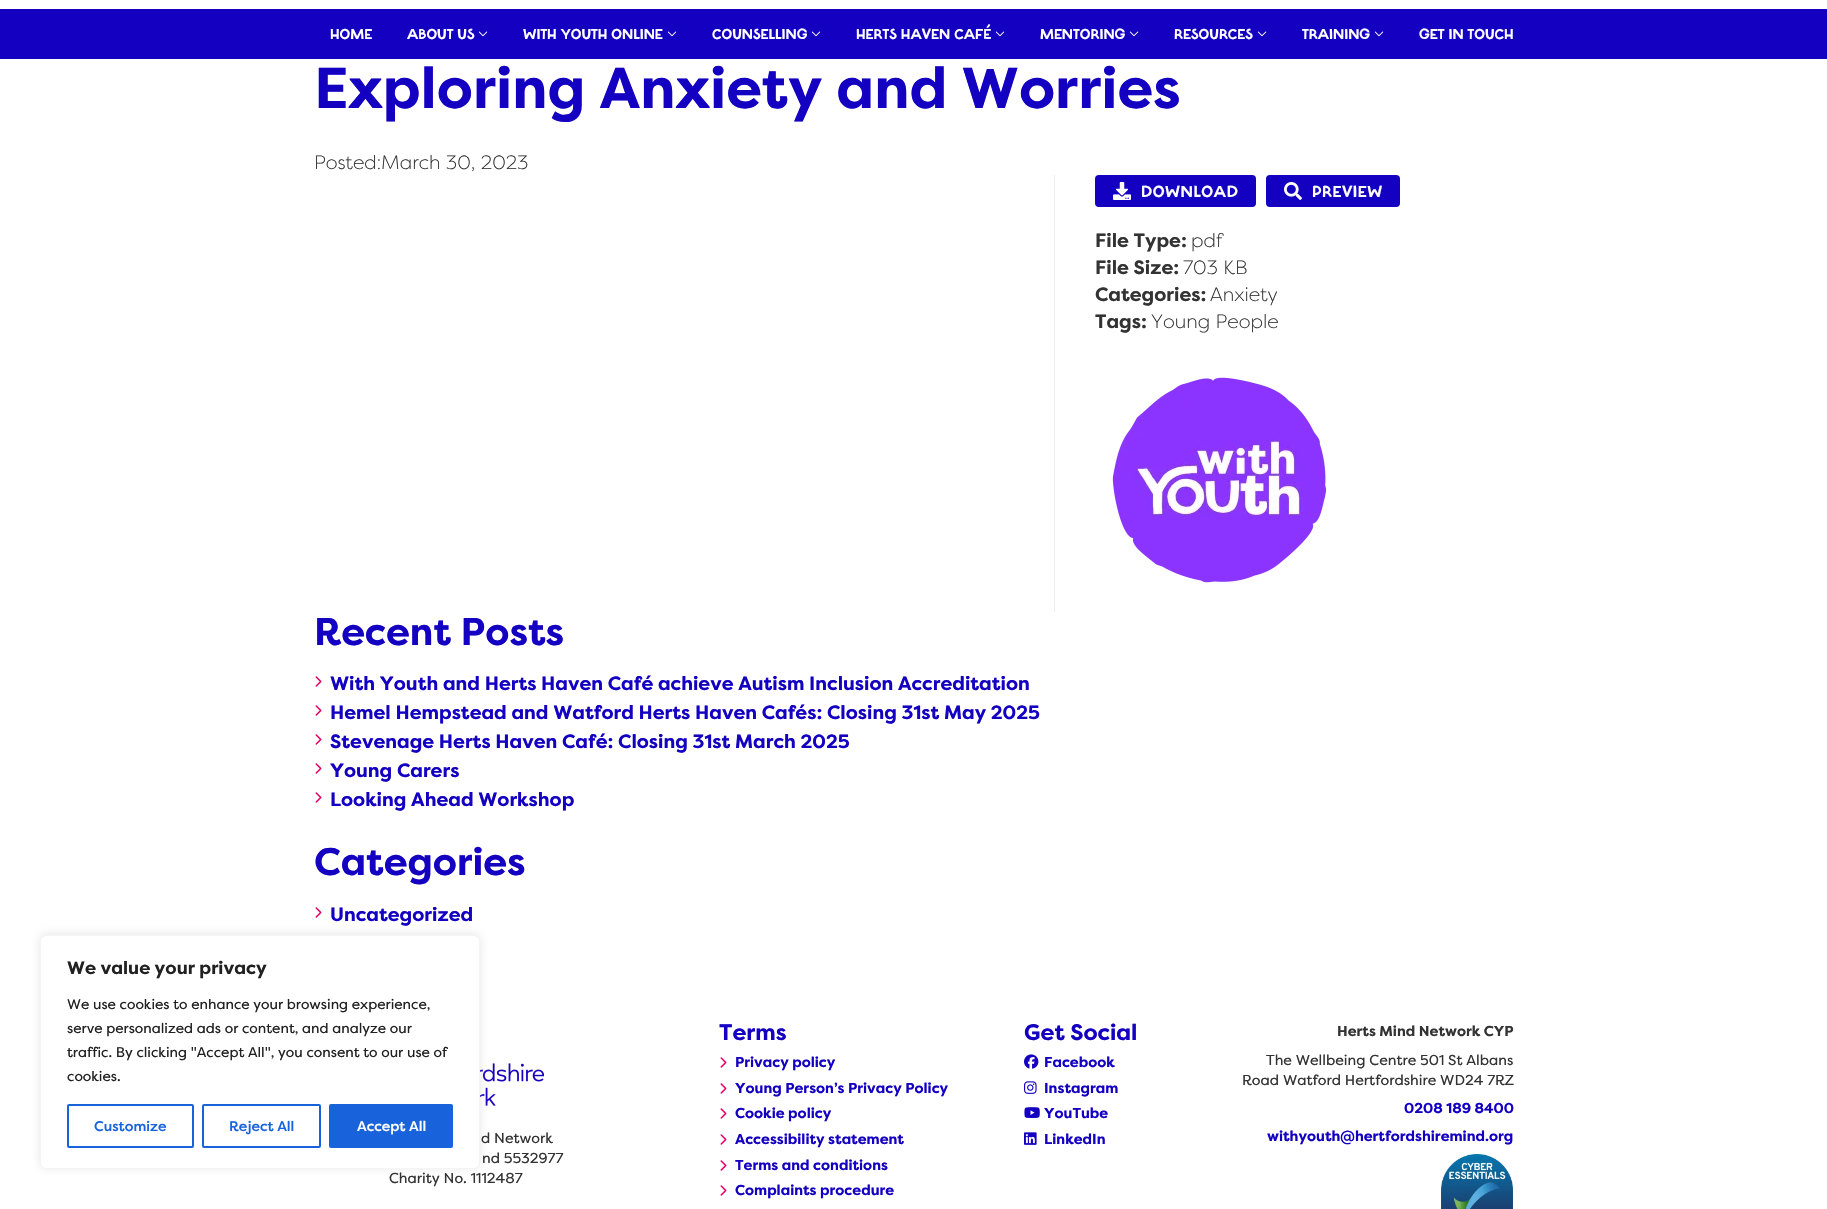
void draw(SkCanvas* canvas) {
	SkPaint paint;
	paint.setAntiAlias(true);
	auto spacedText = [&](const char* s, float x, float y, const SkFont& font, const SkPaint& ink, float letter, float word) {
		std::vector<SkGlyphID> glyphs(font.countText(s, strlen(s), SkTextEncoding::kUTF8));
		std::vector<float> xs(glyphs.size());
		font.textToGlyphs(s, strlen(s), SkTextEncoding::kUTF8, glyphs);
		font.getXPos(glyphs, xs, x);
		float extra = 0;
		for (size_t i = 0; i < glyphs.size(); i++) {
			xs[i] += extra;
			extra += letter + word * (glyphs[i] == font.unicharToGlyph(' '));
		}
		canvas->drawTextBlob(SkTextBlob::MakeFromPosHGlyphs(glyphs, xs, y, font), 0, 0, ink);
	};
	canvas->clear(0xffffffff);
	canvas->drawImageRect(SkImages::DeferredFromEncodedData(SkData::MakeFromFileName("img11.png")), SkRect::MakeXYWH(480, 1063, 64, 43), SkSamplingOptions());
	paint.setColor(0x4dacabab);
	paint.setMaskFilter(SkMaskFilter::MakeBlur(kNormal_SkBlurStyle, 5));
	canvas->drawRoundRect(SkRect::MakeXYWH(40, 934, 440, 234), 6, 6, paint);
	paint.setMaskFilter(nullptr);
	paint.setColor(0xffffffff);
	canvas->drawRoundRect(SkRect::MakeXYWH(40.5, 935.5, 439, 233), 5.5, 5.5, paint);
	paint.setStroke(true);
	paint.setStrokeWidth(1);
	paint.setColor(0xfff4f4f4);
	canvas->drawRoundRect(SkRect::MakeXYWH(40.5, 935.5, 439, 233), 5.5, 5.5, paint);
	SkFont f1(fontMgr->matchFamilyStyle("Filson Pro", SkFontStyle::Bold()), 18);
	f1.setSubpixel(true);
	paint.setStroke(false);
	paint.setColor(0xff212121);
	canvas->drawString("We value your privacy", 67, 974, f1, paint);
	SkFont f2(fontMgr->matchFamilyStyle("Filson Pro", SkFontStyle::Normal()), 14);
	f2.setSubpixel(true);
	canvas->drawString("We use cookies to enhance your browsing experience,", 67, 1009, f2, paint);
	canvas->drawString("serve personalized ads or content, and analyze our", 67, 1033, f2, paint);
	canvas->drawString("traffic. By clicking \"Accept All\", you consent to our use of", 67, 1057, f2, paint);
	canvas->drawString("cookies.", 67, 1081, f2, paint);
	paint.setStroke(true);
	paint.setStrokeWidth(2);
	paint.setColor(0xff1863dc);
	canvas->drawRoundRect(SkRect::MakeXYWH(68, 1105, 125, 42), 1, 1, paint);
	SkFont f3(fontMgr->matchFamilyStyle("Filson Pro", SkFontStyle(500, SkFontStyle::kNormal_Width, SkFontStyle::kUpright_Slant)), 14);
	f3.setSubpixel(true);
	paint.setStroke(false);
	canvas->drawString("Customize", 94, 1131, f3, paint);
	paint.setStroke(true);
	canvas->drawRoundRect(SkRect::MakeXYWH(203, 1105, 117, 42), 1, 1, paint);
	paint.setStroke(false);
	canvas->drawString("Reject All", 229, 1131, f3, paint);
	canvas->drawRoundRect(SkRect::MakeXYWH(330, 1105, 122, 42), 1, 1, paint);
	paint.setStroke(true);
	canvas->drawRoundRect(SkRect::MakeXYWH(330, 1105, 122, 42), 1, 1, paint);
	paint.setStroke(false);
	paint.setColor(0xffffffff);
	canvas->drawString("Accept All", 357, 1131, f3, paint);
	paint.setColor(0xff1300c1);
	canvas->drawRect(SkRect::MakeXYWH(0, 9, 1827, 50), paint);
	SkFont f4(fontMgr->matchFamilyStyle("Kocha", SkFontStyle::Normal()), 14.4);
	f4.setSubpixel(true);
	paint.setColor(0xffffffff);
	canvas->drawString("HOME", 330, 39, f4, paint);
	canvas->drawString("ABOUT US", 407, 39, f4, paint);
	canvas->drawImageRect(SkImages::DeferredFromEncodedData(SkData::MakeFromFileName("img1.png")), SkRect::MakeXYWH(478, 31, 10, 6), SkSamplingOptions());
	canvas->drawString("WITH YOUTH ONLINE", 523, 39, f4, paint);
	canvas->drawImageRect(SkImages::DeferredFromEncodedData(SkData::MakeFromFileName("img1.png")), SkRect::MakeXYWH(667, 31, 10, 6), SkSamplingOptions());
	canvas->drawString("COUNSELLING", 712, 39, f4, paint);
	canvas->drawImageRect(SkImages::DeferredFromEncodedData(SkData::MakeFromFileName("img1.png")), SkRect::MakeXYWH(811, 31, 10, 6), SkSamplingOptions());
	canvas->drawString("HERTS HAVEN CAFÉ", 856, 39, f4, paint);
	canvas->drawImageRect(SkImages::DeferredFromEncodedData(SkData::MakeFromFileName("img1.png")), SkRect::MakeXYWH(995, 31, 10, 6), SkSamplingOptions());
	canvas->drawString("MENTORING", 1040, 39, f4, paint);
	canvas->drawImageRect(SkImages::DeferredFromEncodedData(SkData::MakeFromFileName("img1.png")), SkRect::MakeXYWH(1129, 31, 10, 6), SkSamplingOptions());
	canvas->drawString("RESOURCES", 1174, 39, f4, paint);
	canvas->drawImageRect(SkImages::DeferredFromEncodedData(SkData::MakeFromFileName("img1.png")), SkRect::MakeXYWH(1257, 31, 10, 6), SkSamplingOptions());
	canvas->drawString("TRAINING", 1302, 39, f4, paint);
	canvas->drawImageRect(SkImages::DeferredFromEncodedData(SkData::MakeFromFileName("img1.png")), SkRect::MakeXYWH(1374, 31, 10, 6), SkSamplingOptions());
	canvas->drawString("GET IN TOUCH", 1419, 39, f4, paint);
	SkFont f5(fontMgr->matchFamilyStyle("Filson Pro", SkFontStyle::Bold()), 57.6);
	f5.setSubpixel(true);
	paint.setColor(0xff1300c1);
	canvas->drawString("Exploring Anxiety and Worries", 314, 108, f5, paint);
	SkFont f6(fontMgr->matchFamilyStyle("Filson Pro", SkFontStyle(300, SkFontStyle::kNormal_Width, SkFontStyle::kUpright_Slant)), 19.2);
	f6.setSubpixel(true);
	paint.setColor(0xff333333);
	canvas->drawString("Posted:March 30, 2023", 314, 169, f6, paint);
	paint.setColor(0xffeeeeee);
	canvas->drawRect(SkRect::MakeXYWH(1054, 175, 1, 437), paint);
	paint.setColor(0xff1300c1);
	canvas->drawRoundRect(SkRect::MakeXYWH(1095, 175, 161, 32), 4, 4, paint);
	canvas->drawImageRect(SkImages::DeferredFromEncodedData(SkData::MakeFromFileName("img2.png")), SkRect::MakeXYWH(1113, 182, 18, 18), SkSamplingOptions());
	SkFont f7(fontMgr->matchFamilyStyle("Kocha", SkFontStyle::Normal()), 16);
	f7.setSubpixel(true);
	paint.setColor(0xffffffff);
	spacedText("DOWNLOAD", 1141, 197, f7, paint, 0.5, 0);
	paint.setColor(0xff1300c1);
	canvas->drawRoundRect(SkRect::MakeXYWH(1266, 175, 134, 32), 4, 4, paint);
	canvas->drawImageRect(SkImages::DeferredFromEncodedData(SkData::MakeFromFileName("img3.png")), SkRect::MakeXYWH(1284, 182, 18, 18), SkSamplingOptions());
	paint.setColor(0xffffffff);
	spacedText("PREVIEW", 1312, 197, f7, paint, 0.5, 0);
	SkFont f8(fontMgr->matchFamilyStyle("Filson Pro", SkFontStyle::Bold()), 19.2);
	f8.setSubpixel(true);
	paint.setColor(0xff333333);
	canvas->drawString("File Type:", 1095, 247, f8, paint);
	canvas->drawString("pdf", 1191, 247, f6, paint);
	canvas->drawString("File Size:", 1095, 274, f8, paint);
	canvas->drawString("703 KB", 1183, 274, f6, paint);
	canvas->drawString("Categories:", 1095, 301, f8, paint);
	canvas->drawString("Anxiety", 1210, 301, f6, paint);
	canvas->drawString("Tags:", 1095, 328, f8, paint);
	canvas->drawString("Young People", 1151, 328, f6, paint);
	canvas->drawImageRect(SkImages::DeferredFromEncodedData(SkData::MakeFromFileName("img4.png")), SkRect::MakeXYWH(1112, 377, 215, 206), SkSamplingOptions());
	SkFont f9(fontMgr->matchFamilyStyle("Filson Pro", SkFontStyle::Bold()), 38.5);
	f9.setSubpixel(true);
	paint.setColor(0xff1300c1);
	canvas->drawString("Recent Posts", 314, 645, f9, paint);
	canvas->drawImageRect(SkImages::DeferredFromEncodedData(SkData::MakeFromFileName("img5.png")), SkRect::MakeXYWH(315, 676, 7, 11), SkSamplingOptions());
	canvas->drawString("With Youth and Herts Haven Café achieve Autism Inclusion Accreditation", 330, 690, f8, paint);
	canvas->drawImageRect(SkImages::DeferredFromEncodedData(SkData::MakeFromFileName("img5.png")), SkRect::MakeXYWH(315, 705, 7, 11), SkSamplingOptions());
	canvas->drawString("Hemel Hempstead and Watford Herts Haven Cafés: Closing 31st May 2025", 330, 719, f8, paint);
	canvas->drawImageRect(SkImages::DeferredFromEncodedData(SkData::MakeFromFileName("img5.png")), SkRect::MakeXYWH(315, 734, 7, 11), SkSamplingOptions());
	canvas->drawString("Stevenage Herts Haven Café: Closing 31st March 2025", 330, 748, f8, paint);
	canvas->drawImageRect(SkImages::DeferredFromEncodedData(SkData::MakeFromFileName("img5.png")), SkRect::MakeXYWH(315, 763, 7, 11), SkSamplingOptions());
	canvas->drawString("Young Carers", 330, 777, f8, paint);
	canvas->drawImageRect(SkImages::DeferredFromEncodedData(SkData::MakeFromFileName("img5.png")), SkRect::MakeXYWH(315, 792, 7, 11), SkSamplingOptions());
	canvas->drawString("Looking Ahead Workshop", 330, 806, f8, paint);
	canvas->drawString("Categories", 314, 875, f9, paint);
	canvas->drawImageRect(SkImages::DeferredFromEncodedData(SkData::MakeFromFileName("img5.png")), SkRect::MakeXYWH(315, 907, 7, 11), SkSamplingOptions());
	canvas->drawString("Uncategorized", 330, 921, f8, paint);
	SkFont f10(fontMgr->matchFamilyStyle("Filson Pro", SkFontStyle::Bold()), 22.5);
	f10.setSubpixel(true);
	canvas->drawString("Terms", 719, 1040, f10, paint);
	canvas->drawImageRect(SkImages::DeferredFromEncodedData(SkData::MakeFromFileName("img5.png")), SkRect::MakeXYWH(720, 1057, 7, 11), SkSamplingOptions());
	SkFont f11(fontMgr->matchFamilyStyle("Filson Pro", SkFontStyle::Bold()), 14.4);
	f11.setSubpixel(true);
	canvas->drawString("Privacy policy", 735, 1067, f11, paint);
	canvas->drawImageRect(SkImages::DeferredFromEncodedData(SkData::MakeFromFileName("img5.png")), SkRect::MakeXYWH(720, 1083, 7, 11), SkSamplingOptions());
	canvas->drawString("Young Person’s Privacy Policy", 735, 1093, f11, paint);
	canvas->drawImageRect(SkImages::DeferredFromEncodedData(SkData::MakeFromFileName("img5.png")), SkRect::MakeXYWH(720, 1108, 7, 11), SkSamplingOptions());
	canvas->drawString("Cookie policy", 735, 1118, f11, paint);
	canvas->drawImageRect(SkImages::DeferredFromEncodedData(SkData::MakeFromFileName("img5.png")), SkRect::MakeXYWH(720, 1134, 7, 11), SkSamplingOptions());
	canvas->drawString("Accessibility statement", 735, 1144, f11, paint);
	canvas->drawImageRect(SkImages::DeferredFromEncodedData(SkData::MakeFromFileName("img5.png")), SkRect::MakeXYWH(720, 1160, 7, 11), SkSamplingOptions());
	canvas->drawString("Terms and conditions", 735, 1170, f11, paint);
	canvas->drawImageRect(SkImages::DeferredFromEncodedData(SkData::MakeFromFileName("img5.png")), SkRect::MakeXYWH(720, 1185, 7, 11), SkSamplingOptions());
	canvas->drawString("Complaints procedure", 735, 1195, f11, paint);
	canvas->drawString("Get Social", 1024, 1040, f10, paint);
	canvas->drawImageRect(SkImages::DeferredFromEncodedData(SkData::MakeFromFileName("img6.png")), SkRect::MakeXYWH(1024, 1054, 15, 15), SkSamplingOptions());
	canvas->drawString("Facebook", 1044, 1067, f11, paint);
	canvas->drawImageRect(SkImages::DeferredFromEncodedData(SkData::MakeFromFileName("img7.png")), SkRect::MakeXYWH(1024, 1081, 13, 13), SkSamplingOptions());
	canvas->drawString("Instagram", 1044, 1093, f11, paint);
	canvas->drawImageRect(SkImages::DeferredFromEncodedData(SkData::MakeFromFileName("img8.png")), SkRect::MakeXYWH(1024, 1107, 16, 11), SkSamplingOptions());
	canvas->drawString("YouTube", 1044, 1118, f11, paint);
	canvas->drawImageRect(SkImages::DeferredFromEncodedData(SkData::MakeFromFileName("img9.png")), SkRect::MakeXYWH(1024, 1132, 13, 13), SkSamplingOptions());
	canvas->drawString("LinkedIn", 1044, 1144, f11, paint);
	paint.setColor(0xff333333);
	canvas->drawString("Herts Mind Network CYP", 1337, 1036, f11, paint);
	SkFont f12(fontMgr->matchFamilyStyle("Filson Pro", SkFontStyle::Normal()), 14.4);
	f12.setSubpixel(true);
	canvas->drawString("The Wellbeing Centre 501 St Albans", 1266, 1065, f12, paint);
	canvas->drawString("Road Watford Hertfordshire WD24 7RZ", 1242, 1085, f12, paint);
	paint.setColor(0xff1300c1);
	canvas->drawString("0208 189 8400", 1404, 1113, f11, paint);
	canvas->drawString("withyouth@hertfordshiremind.org", 1267, 1141, f11, paint);
	canvas->drawImageRect(SkImages::DeferredFromEncodedData(SkData::MakeFromFileName("img10.png")), SkRect::MakeXYWH(1441, 1154, 72, 55), SkSamplingOptions());
	paint.setColor(0xff333333);
	canvas->drawString("d Network", 481, 1143, f12, paint);
	canvas->drawString("nd 5532977", 482, 1163, f12, paint);
	canvas->drawString("Charity No. 1112487", 389, 1183, f12, paint);
}
